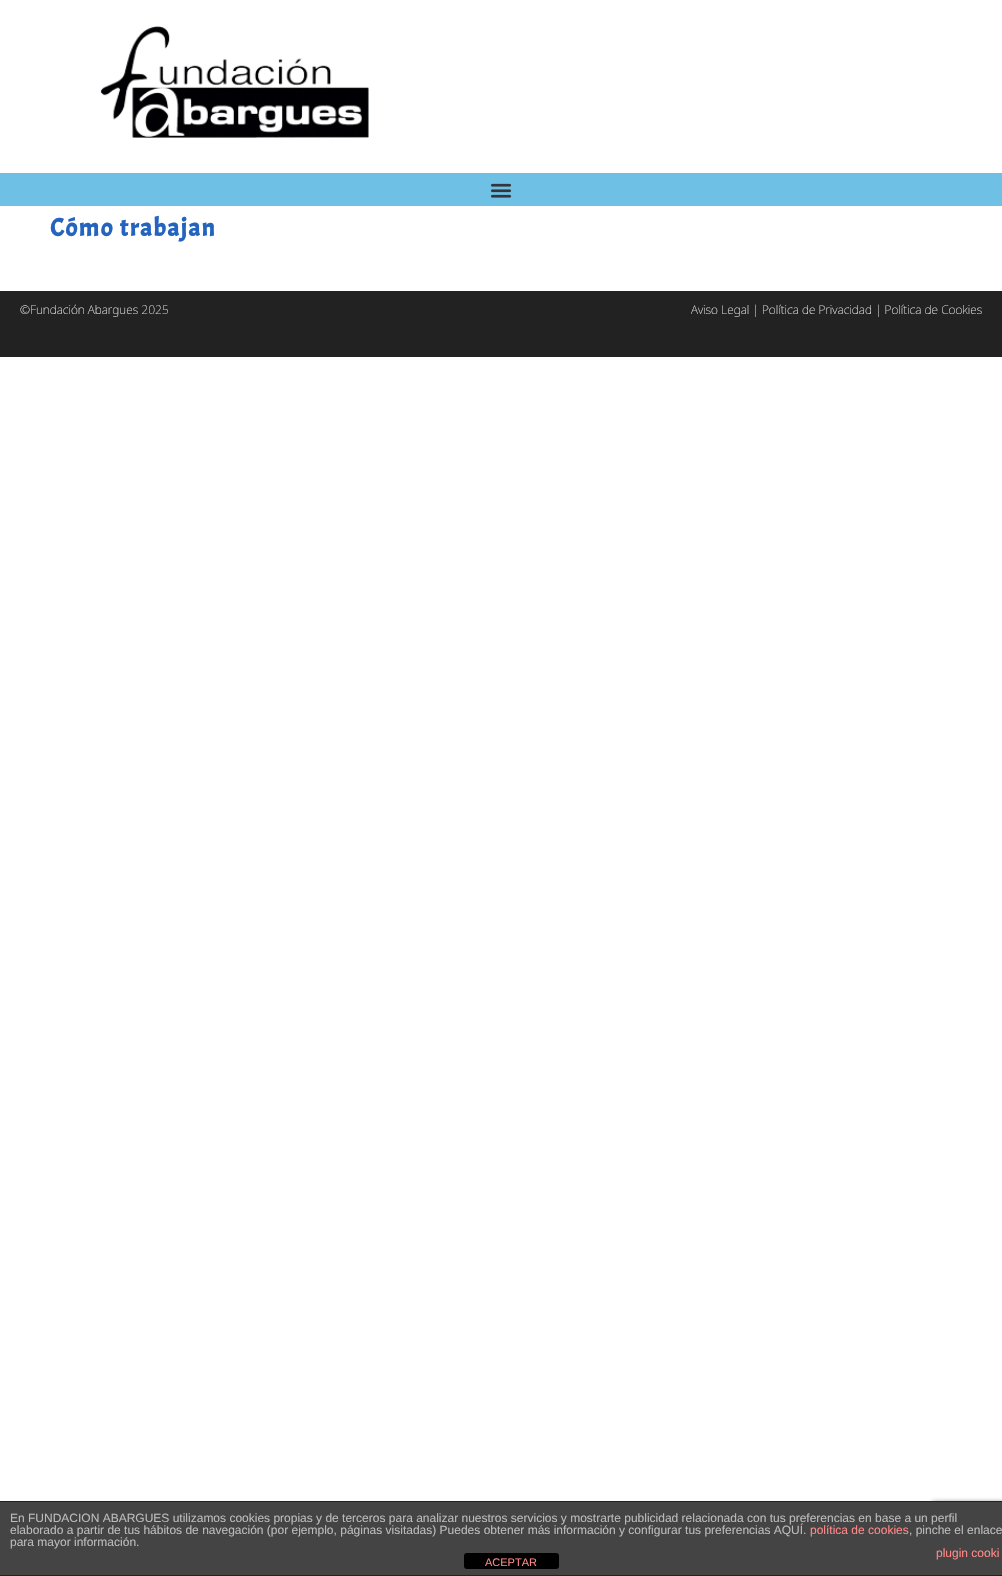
void draw(SkCanvas* canvas) {
	SkPaint paint;
	paint.setAntiAlias(true);
	auto spacedText = [&](const char* s, float x, float y, const SkFont& font, const SkPaint& ink, float letter, float word) {
		std::vector<SkGlyphID> glyphs(font.countText(s, strlen(s), SkTextEncoding::kUTF8));
		std::vector<float> xs(glyphs.size());
		font.textToGlyphs(s, strlen(s), SkTextEncoding::kUTF8, glyphs);
		font.getXPos(glyphs, xs, x);
		float extra = 0;
		for (size_t i = 0; i < glyphs.size(); i++) {
			xs[i] += extra;
			extra += letter + word * (glyphs[i] == font.unicharToGlyph(' '));
		}
		canvas->drawTextBlob(SkTextBlob::MakeFromPosHGlyphs(glyphs, xs, y, font), 0, 0, ink);
	};
	canvas->clear(0xffffffff);
	canvas->drawImageRect(SkImages::DeferredFromEncodedData(SkData::MakeFromFileName("img1.png")), SkRect::MakeXYWH(100, 26, 269, 112), SkSamplingOptions());
	paint.setColor(0xff6ec1e4);
	canvas->drawRect(SkRect::MakeXYWH(0, 173, 1002, 33), paint);
	canvas->drawImageRect(SkImages::DeferredFromEncodedData(SkData::MakeFromFileName("img2.png")), SkRect::MakeXYWH(490, 183, 22, 15), SkSamplingOptions());
	SkFont f1(fontMgr->matchFamilyStyle("Acme", SkFontStyle::Bold()), 25);
	f1.setSubpixel(true);
	paint.setColor(0xff2464bf);
	spacedText("Cómo trabajan", 50, 236, f1, paint, 1.5, 0);
	paint.setColor(0xff222222);
	canvas->drawRect(SkRect::MakeXYWH(0, 291, 1002, 66), paint);
	SkFont f2(fontMgr->matchFamilyStyle("Noto Sans", SkFontStyle(100, SkFontStyle::kNormal_Width, SkFontStyle::kUpright_Slant)), 12);
	f2.setSubpixel(true);
	paint.setColor(0xffffffff);
	canvas->drawString("©Fundación Abargues 2025", 20, 314, f2, paint);
	canvas->drawString("Aviso Legal | Política de Privacidad | Política de Cookies", 691, 314, f2, paint);
	paint.setColor(0xff808080);
	paint.setMaskFilter(SkMaskFilter::MakeBlur(kNormal_SkBlurStyle, 2.5));
	canvas->drawRoundRect(SkRect::MakeXYWH(932, 1502, 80, 60), 2, 2, paint);
	paint.setMaskFilter(nullptr);
	paint.setColor(0xff444444);
	canvas->drawRect(SkRect::MakeXYWH(0, 1502, 1002, 73), paint);
	paint.setColor(0xff222222);
	canvas->drawRect(SkRect::MakeXYWH(0, 1501, 1002, 1), paint);
	canvas->drawRect(SkRect::MakeXYWH(0, 1575, 1002, 1), paint);
	SkFont f3(fontMgr->matchFamilyStyle("Liberation Sans", SkFontStyle::Normal()), 12);
	f3.setSubpixel(true);
	paint.setColor(0xffbbbbbb);
	canvas->drawString("En FUNDACION ABARGUES utilizamos cookies propias y de terceros para analizar nuestros servicios y mostrarte publicidad relacionada con tus preferencias en base a un perfil", 10, 1522, f3, paint);
	canvas->drawString("elaborado a partir de tus hábitos de navegación (por ejemplo, páginas visitadas) Puedes obtener más información y configurar tus preferencias AQUÍ.", 10, 1534, f3, paint);
	paint.setColor(0xffff8888);
	canvas->drawString("política de cookies", 810, 1534, f3, paint);
	paint.setColor(0xffbbbbbb);
	canvas->drawString(", pinche el enlace", 909, 1534, f3, paint);
	canvas->drawString("para mayor información.", 10, 1546, f3, paint);
	paint.setColor(0xffff8888);
	canvas->drawString("plugin cooki", 936, 1557, f3, paint);
	paint.setColor(0xff000000);
	canvas->drawRoundRect(SkRect::MakeXYWH(464, 1553, 95, 16), 3, 3, paint);
	SkFont f4(fontMgr->matchFamilyStyle("Liberation Sans", SkFontStyle::Normal()), 11);
	f4.setSubpixel(true);
	paint.setColor(0xffff8888);
	canvas->drawString("ACEPTAR", 485, 1566, f4, paint);
}
